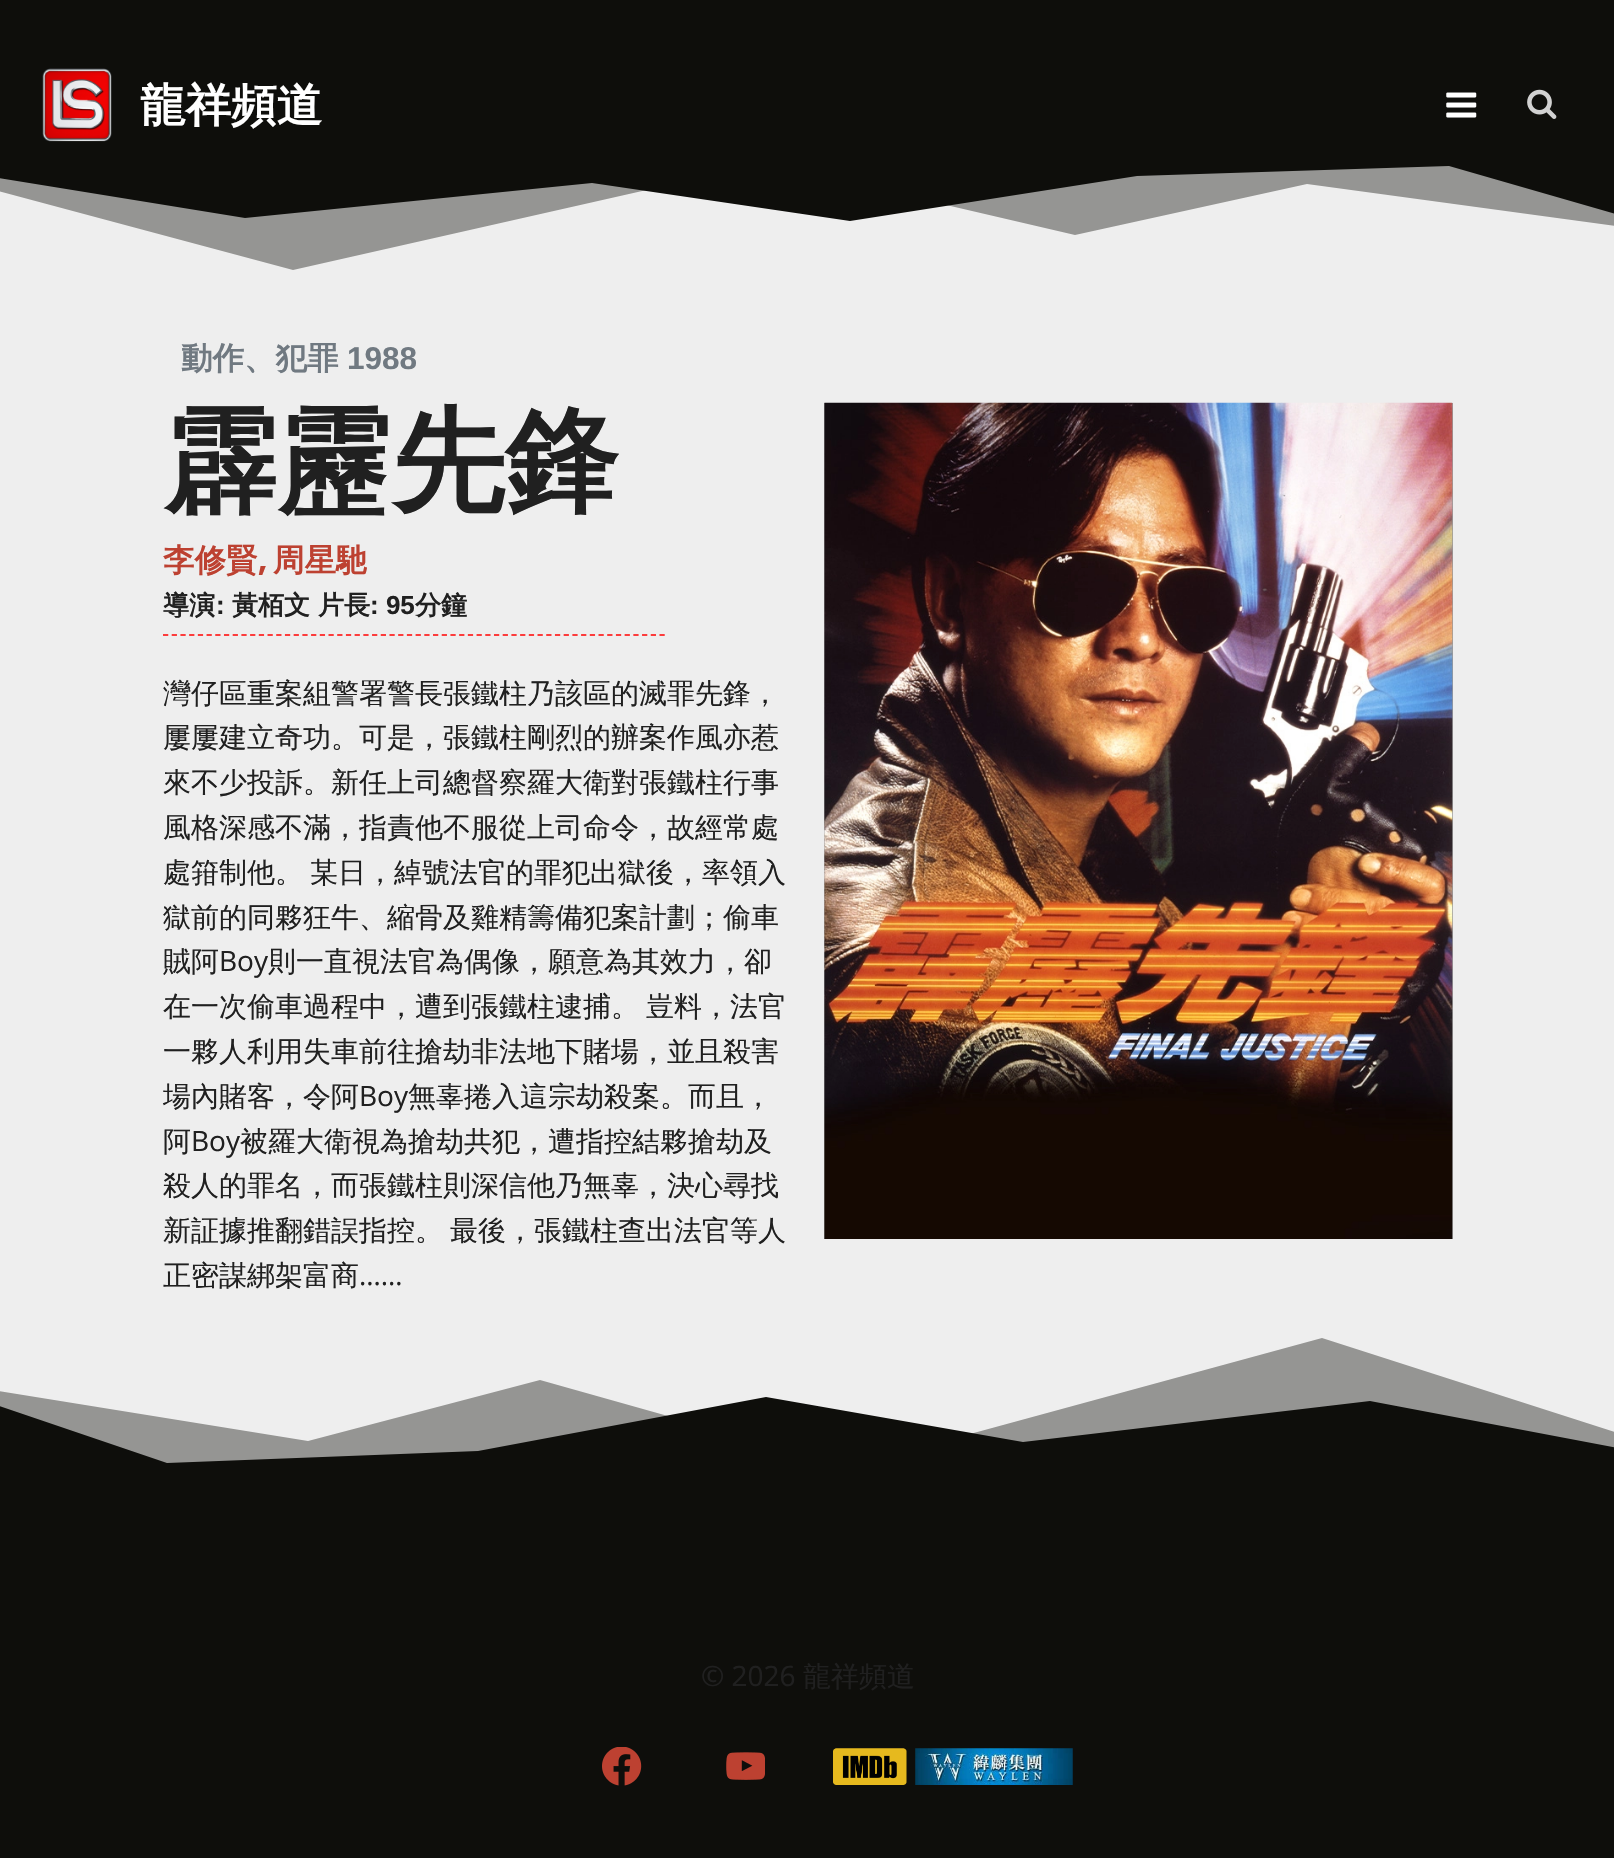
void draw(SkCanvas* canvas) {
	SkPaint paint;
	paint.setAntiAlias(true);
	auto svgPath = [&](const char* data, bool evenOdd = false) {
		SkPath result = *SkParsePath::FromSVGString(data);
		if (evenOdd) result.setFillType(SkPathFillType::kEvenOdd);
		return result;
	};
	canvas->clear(0xff0e0e0b);
	paint.setColor(0xffeeeeee);
	canvas->drawRect(SkRect::MakeXYWH(0, 166, 1614, 1297), paint);
	paint.setColor(0x660e0e0b);
	canvas->drawPath(svgPath("M-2 191L293 270L766 163L1075 235L1307 184L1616 226V103H-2Z"), paint);
	paint.setColor(0xff0e0e0b);
	canvas->drawPath(svgPath("M-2 178L245 218L592 183L850 221L1137 176L1449 166L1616 214V103H-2Z"), paint);
	canvas->drawImageRect(SkImages::DeferredFromEncodedData(SkData::MakeFromFileName("img1.png")), SkRect::MakeXYWH(42, 68, 70, 74), SkSamplingOptions());
	SkFont f1(fontMgr->matchFamilyStyle("WenQuanYi Zen Hei", SkFontStyle::Bold()), 45.5);
	f1.setSubpixel(true);
	paint.setColor(0xffffffff);
	canvas->drawString("龍祥頻道", 140, 121, f1, paint);
	canvas->drawImageRect(SkImages::DeferredFromEncodedData(SkData::MakeFromFileName("img2.png")), SkRect::MakeXYWH(1446, 92, 31, 26), SkSamplingOptions());
	canvas->drawImageRect(SkImages::DeferredFromEncodedData(SkData::MakeFromFileName("img3.png")), SkRect::MakeXYWH(1527, 89, 30, 30), SkSamplingOptions());
	SkFont f2(fontMgr->matchFamilyStyle("WenQuanYi Zen Hei", SkFontStyle::Bold()), 31.5);
	f2.setSubpixel(true);
	paint.setColor(0xff707981);
	canvas->drawString("動作、犯罪", 181, 369, f2, paint);
	SkFont f3(fontMgr->matchFamilyStyle("Liberation Sans", SkFontStyle::Bold()), 31.5);
	f3.setSubpixel(true);
	canvas->drawString("1988", 347, 369, f3, paint);
	SkFont f4(fontMgr->matchFamilyStyle("WenQuanYi Zen Hei", SkFontStyle::Bold()), 114);
	f4.setSubpixel(true);
	paint.setColor(0xff202020);
	canvas->drawString("霹靂先鋒", 163, 501, f4, paint);
	paint.setColor(0xffbd4131);
	canvas->drawString("李修賢", 163, 571, f2, paint);
	SkFont f5(fontMgr->matchFamilyStyle("Poppins", SkFontStyle::Bold()), 31.5);
	f5.setSubpixel(true);
	canvas->drawString(",", 258, 571, f5, paint);
	canvas->drawString("周星馳", 273, 571, f2, paint);
	SkFont f6(fontMgr->matchFamilyStyle("WenQuanYi Zen Hei", SkFontStyle::Bold()), 26);
	f6.setSubpixel(true);
	paint.setColor(0xff202020);
	canvas->drawString("導演", 163, 614, f6, paint);
	SkFont f7(fontMgr->matchFamilyStyle("Liberation Sans", SkFontStyle::Bold()), 26);
	f7.setSubpixel(true);
	canvas->drawString(":", 216, 614, f7, paint);
	canvas->drawString("黃栢文", 232, 614, f6, paint);
	canvas->drawString("片長", 318, 614, f6, paint);
	canvas->drawString(": 95", 370, 614, f7, paint);
	canvas->drawString("分鐘", 415, 614, f6, paint);
	paint.setStroke(true);
	paint.setStrokeWidth(1.8);
	paint.setColor(0xfffc3c3c);
	paint.setPathEffect(SkDashPathEffect::Make({{5.25f, 3.46f}}, 0));
	canvas->drawPath(svgPath("M163 635H665"), paint);
	paint.setPathEffect(nullptr);
	SkFont f8(fontMgr->matchFamilyStyle("WenQuanYi Zen Hei", SkFontStyle(500, SkFontStyle::kNormal_Width, SkFontStyle::kUpright_Slant)), 28);
	f8.setSubpixel(true);
	paint.setStroke(false);
	paint.setColor(0xff202020);
	canvas->drawString("灣仔區重案組警署警長張鐵柱乃該區的滅罪先鋒，", 163, 703, f8, paint);
	canvas->drawString("屢屢建立奇功。可是，張鐵柱剛烈的辦案作風亦惹", 163, 747, f8, paint);
	canvas->drawString("來不少投訴。新任上司總督察羅大衛對張鐵柱行事", 163, 792, f8, paint);
	canvas->drawString("風格深感不滿，指責他不服從上司命令，故經常處", 163, 837, f8, paint);
	canvas->drawString("處箝制他。", 163, 882, f8, paint);
	canvas->drawString("某日，綽號法官的罪犯出獄後，率領入", 310, 882, f8, paint);
	canvas->drawString("獄前的同夥狂牛、縮骨及雞精籌備犯案計劃；偷車", 163, 927, f8, paint);
	canvas->drawString("賊阿", 163, 971, f8, paint);
	SkFont f9(fontMgr->matchFamilyStyle("Open Sans", SkFontStyle::Normal()), 28);
	f9.setSubpixel(true);
	canvas->drawString("Boy", 219, 971, f9, paint);
	canvas->drawString("則一直視法官為偶像，願意為其效力，卻", 268, 971, f8, paint);
	canvas->drawString("在一次偷車過程中，遭到張鐵柱逮捕。", 163, 1016, f8, paint);
	canvas->drawString("豈料，法官", 646, 1016, f8, paint);
	canvas->drawString("一夥人利用失車前往搶劫非法地下賭場，並且殺害", 163, 1061, f8, paint);
	canvas->drawString("場內賭客，令阿", 163, 1106, f8, paint);
	canvas->drawString("Boy", 359, 1106, f9, paint);
	canvas->drawString("無辜捲入這宗劫殺案。而且，", 408, 1106, f8, paint);
	canvas->drawString("阿", 163, 1151, f8, paint);
	canvas->drawString("Boy", 191, 1151, f9, paint);
	canvas->drawString("被羅大衛視為搶劫共犯，遭指控結夥搶劫及", 240, 1151, f8, paint);
	canvas->drawString("殺人的罪名，而張鐵柱則深信他乃無辜，決心尋找", 163, 1195, f8, paint);
	canvas->drawString("新証據推翻錯誤指控。", 163, 1240, f8, paint);
	canvas->drawString("最後，張鐵柱查出法官等人", 450, 1240, f8, paint);
	canvas->drawString("正密謀綁架富商", 163, 1285, f8, paint);
	canvas->drawString("……", 359, 1285, f9, paint);
	paint.setColor(0xff999999);
	canvas->drawRect(SkRect::MakeXYWH(824, 403, 629, 836), paint);
	canvas->drawImageRect(SkImages::DeferredFromEncodedData(SkData::MakeFromFileName("img4.png")), SkRect::MakeXYWH(824, 402, 629, 837), SkSamplingOptions());
	paint.setColor(0x660e0e0b);
	canvas->drawPath(svgPath("M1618 1433L1322 1338L849 1467L540 1380L308 1441L-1 1391V1538H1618Z"), paint);
	paint.setColor(0xff0e0e0b);
	canvas->drawPath(svgPath("M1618 1448L1370 1401L1023 1442L766 1397L478 1451L167 1463L-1 1406V1538H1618Z"), paint);
	paint.setColor(0xff202020);
	canvas->drawString("© 2026", 701, 1686, f9, paint);
	canvas->drawString("龍祥頻道", 803, 1686, f8, paint);
	canvas->drawImageRect(SkImages::DeferredFromEncodedData(SkData::MakeFromFileName("img5.png")), SkRect::MakeXYWH(602, 1747, 40, 39), SkSamplingOptions());
	canvas->drawImageRect(SkImages::DeferredFromEncodedData(SkData::MakeFromFileName("img6.png")), SkRect::MakeXYWH(726, 1752, 39, 28), SkSamplingOptions());
	canvas->drawImageRect(SkImages::DeferredFromEncodedData(SkData::MakeFromFileName("img7.png")), SkRect::MakeXYWH(833, 1748, 74, 37), SkSamplingOptions());
	canvas->drawImageRect(SkImages::DeferredFromEncodedData(SkData::MakeFromFileName("img8.png")), SkRect::MakeXYWH(915, 1748, 158, 37), SkSamplingOptions());
}
